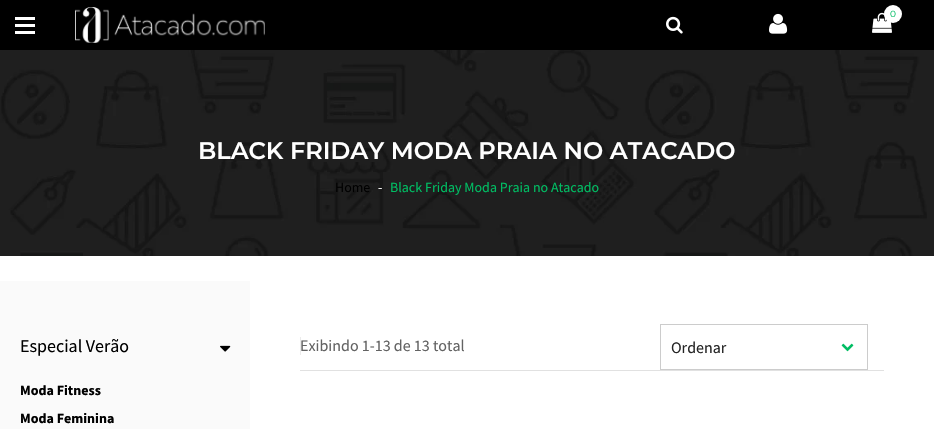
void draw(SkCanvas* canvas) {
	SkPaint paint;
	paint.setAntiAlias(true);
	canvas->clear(0xffffffff);
	paint.setColor(0xff000000);
	canvas->drawRect(SkRect::MakeXYWH(0, 0, 934, 50), paint);
	paint.setColor(0xffffffff);
	canvas->drawRect(SkRect::MakeXYWH(15, 17, 20, 3), paint);
	canvas->drawRect(SkRect::MakeXYWH(15, 24, 20, 3), paint);
	canvas->drawRect(SkRect::MakeXYWH(15, 31, 20, 3), paint);
	canvas->drawImageRect(SkImages::DeferredFromEncodedData(SkData::MakeFromFileName("img1.png")), SkRect::MakeXYWH(75, 7, 190, 36), SkSamplingOptions());
	canvas->drawImageRect(SkImages::DeferredFromEncodedData(SkData::MakeFromFileName("img2.png")), SkRect::MakeXYWH(666, 16, 17, 18), SkSamplingOptions());
	canvas->drawImageRect(SkImages::DeferredFromEncodedData(SkData::MakeFromFileName("img3.png")), SkRect::MakeXYWH(769, 13, 19, 21), SkSamplingOptions());
	canvas->drawImageRect(SkImages::DeferredFromEncodedData(SkData::MakeFromFileName("img4.png")), SkRect::MakeXYWH(872, 12, 20, 21), SkSamplingOptions());
	canvas->drawCircle(893, 14, 9, paint);
	SkFont f1(fontMgr->matchFamilyStyle("Montserrat", SkFontStyle::Normal()), 9);
	f1.setSubpixel(true);
	paint.setColor(0xff00bd63);
	canvas->drawString("0", 890, 17, f1, paint);
	canvas->drawImageRect(SkImages::DeferredFromEncodedData(SkData::MakeFromFileName("img5.png")), SkRect::MakeXYWH(0, 50, 934, 206), SkSamplingOptions());
	SkFont f2(fontMgr->matchFamilyStyle("Montserrat", SkFontStyle(600, SkFontStyle::kNormal_Width, SkFontStyle::kUpright_Slant)), 24);
	f2.setSubpixel(true);
	paint.setColor(0xffffffff);
	canvas->drawString("BLACK FRIDAY MODA PRAIA NO ATACADO", 198, 159, f2, paint);
	SkFont f3(fontMgr->matchFamilyStyle("Source Sans Pro", SkFontStyle::Normal()), 14);
	f3.setSubpixel(true);
	paint.setColor(0xff000000);
	canvas->drawString("Home", 335, 192, f3, paint);
	paint.setColor(0xffffffff);
	canvas->drawString("-", 378, 192, f3, paint);
	paint.setColor(0xff00bd63);
	canvas->drawString("Black Friday Moda Praia no Atacado", 390, 192, f3, paint);
	paint.setColor(0xfffafafa);
	canvas->drawRect(SkRect::MakeXYWH(0, 281, 250, 148), paint);
	SkFont f4(fontMgr->matchFamilyStyle("Source Sans Pro", SkFontStyle::Normal()), 18);
	f4.setSubpixel(true);
	paint.setColor(0xff000000);
	canvas->drawString("Especial Verão", 20, 352, f4, paint);
	canvas->drawImageRect(SkImages::DeferredFromEncodedData(SkData::MakeFromFileName("img6.png")), SkRect::MakeXYWH(220, 345, 11, 7), SkSamplingOptions());
	SkFont f5(fontMgr->matchFamilyStyle("Source Sans Pro", SkFontStyle::Bold()), 14);
	f5.setSubpixel(true);
	canvas->drawString("Moda Fitness", 20, 395, f5, paint);
	canvas->drawString("Moda Feminina", 20, 423, f5, paint);
	paint.setColor(0xffe1e1e1);
	canvas->drawRect(SkRect::MakeXYWH(300, 370, 584, 1), paint);
	paint.setColor(0xffebebeb);
	canvas->drawRect(SkRect::MakeXYWH(300, 337, 1, 18), paint);
	SkFont f6(fontMgr->matchFamilyStyle("Source Sans Pro", SkFontStyle::Normal()), 16);
	f6.setSubpixel(true);
	paint.setColor(0xff636363);
	canvas->drawString("Exibindo 1-13 de 13 total", 300, 351, f6, paint);
	paint.setStroke(true);
	paint.setStrokeWidth(1);
	paint.setColor(0xffcccccc);
	canvas->drawRect(SkRect::MakeXYWH(660.5, 324.5, 207, 45), paint);
	paint.setStroke(false);
	paint.setColor(0xff252525);
	canvas->drawString("Ordenar", 671, 353, f6, paint);
	canvas->drawImageRect(SkImages::DeferredFromEncodedData(SkData::MakeFromFileName("img7.png")), SkRect::MakeXYWH(841, 343, 13, 9), SkSamplingOptions());
}
